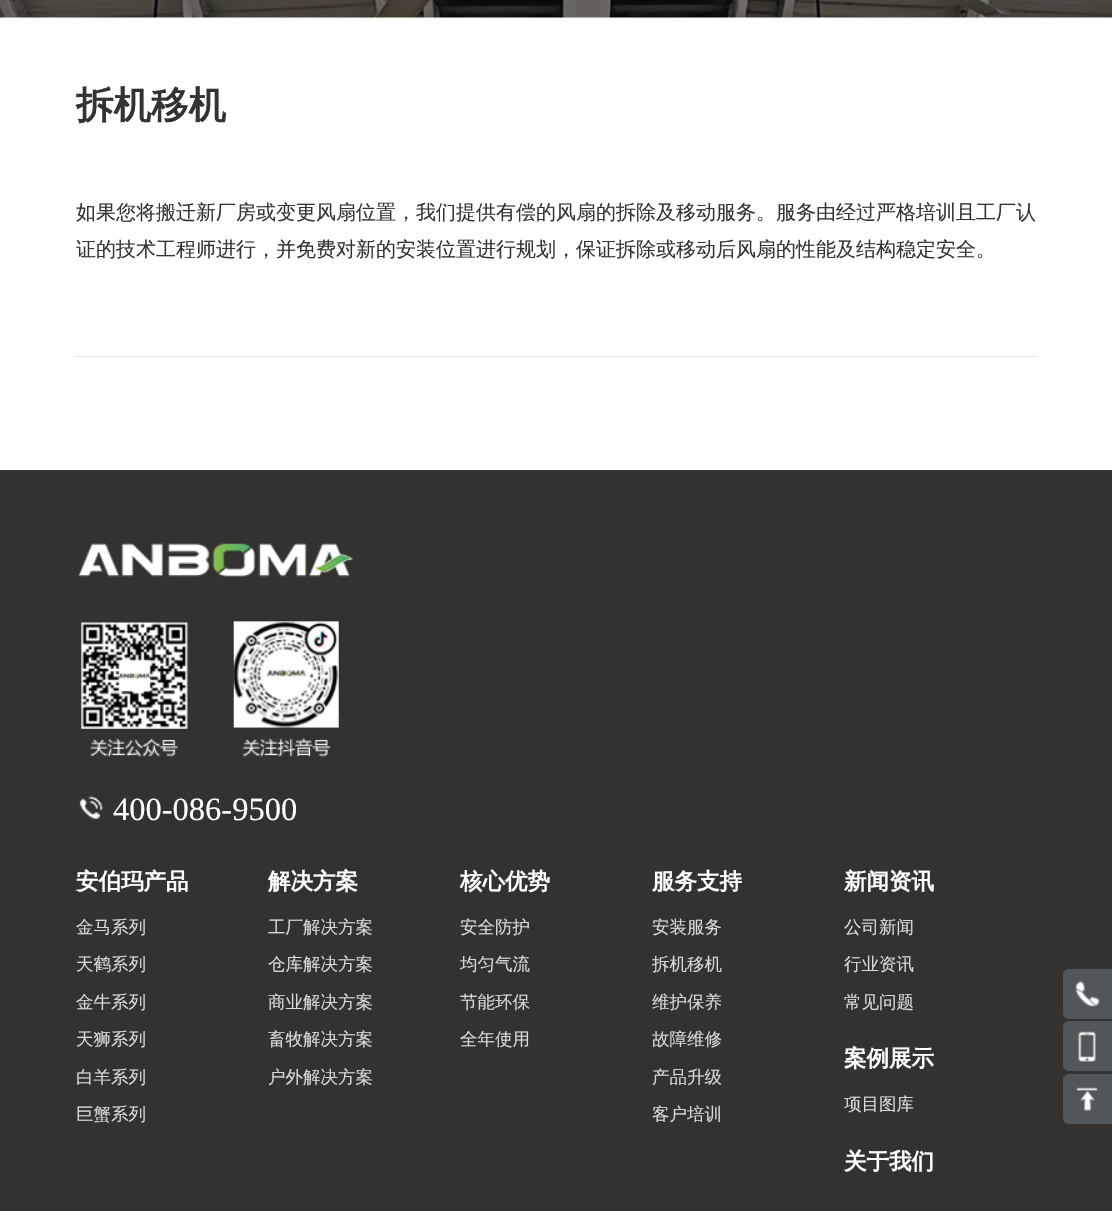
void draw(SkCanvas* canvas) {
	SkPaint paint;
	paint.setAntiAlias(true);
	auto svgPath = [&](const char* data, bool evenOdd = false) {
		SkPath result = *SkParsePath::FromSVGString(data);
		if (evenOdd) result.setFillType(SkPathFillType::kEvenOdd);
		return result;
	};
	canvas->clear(0xffffffff);
	canvas->drawImageRect(SkImages::DeferredFromEncodedData(SkData::MakeFromFileName("img1.png")), SkRect::MakeXYWH(0, 0, 1112, 18), SkSamplingOptions());
	SkFont f1(fontMgr->matchFamilyStyle("WenQuanYi Zen Hei", SkFontStyle::Bold()), 37.5);
	f1.setSubpixel(true);
	paint.setColor(0xff333333);
	canvas->drawString("拆机移机", 76, 118, f1, paint);
	paint.setColor(0xffe3e3e3);
	canvas->drawRect(SkRect::MakeXYWH(76, 356, 960, 1), paint);
	SkFont f2(fontMgr->matchFamilyStyle("WenQuanYi Zen Hei", SkFontStyle(500, SkFontStyle::kNormal_Width, SkFontStyle::kUpright_Slant)), 20);
	f2.setSubpixel(true);
	paint.setColor(0xff333333);
	canvas->drawString("如果您将搬迁新厂房或变更风扇位置，我们提供有偿的风扇的拆除及移动服务。服务由经过严格培训且工厂认", 76, 219, f2, paint);
	canvas->drawString("证的技术工程师进行，并免费对新的安装位置进行规划，保证拆除或移动后风扇的性能及结构稳定安全。", 76, 256, f2, paint);
	paint.setColor(0xff333230);
	canvas->drawRect(SkRect::MakeXYWH(0, 470, 1112, 741), paint);
	canvas->drawImageRect(SkImages::DeferredFromEncodedData(SkData::MakeFromFileName("img2.png")), SkRect::MakeXYWH(78, 543, 275, 34), SkSamplingOptions());
	canvas->drawImageRect(SkImages::DeferredFromEncodedData(SkData::MakeFromFileName("img3.png")), SkRect::MakeXYWH(81, 621, 258, 136), SkSamplingOptions());
	canvas->drawImageRect(SkImages::DeferredFromEncodedData(SkData::MakeFromFileName("img4.png")), SkRect::MakeXYWH(79, 796, 24, 24), SkSamplingOptions());
	SkFont f3(fontMgr->matchFamilyStyle("Liberation Serif", SkFontStyle::Normal()), 32.5);
	f3.setSubpixel(true);
	paint.setColor(0xffffffff);
	canvas->drawString("400-086-9500", 113, 820, f3, paint);
	SkFont f4(fontMgr->matchFamilyStyle("WenQuanYi Zen Hei", SkFontStyle::Bold()), 22.5);
	f4.setSubpixel(true);
	canvas->drawString("安伯玛产品", 76, 889, f4, paint);
	SkFont f5(fontMgr->matchFamilyStyle("WenQuanYi Zen Hei", SkFontStyle(500, SkFontStyle::kNormal_Width, SkFontStyle::kUpright_Slant)), 17.5);
	f5.setSubpixel(true);
	paint.setColor(0xffdad9d9);
	canvas->drawString("金马系列", 76, 933, f5, paint);
	canvas->drawString("天鹤系列", 76, 970, f5, paint);
	canvas->drawString("金牛系列", 76, 1008, f5, paint);
	canvas->drawString("天狮系列", 76, 1045, f5, paint);
	canvas->drawString("白羊系列", 76, 1083, f5, paint);
	canvas->drawString("巨蟹系列", 76, 1120, f5, paint);
	paint.setColor(0xffffffff);
	canvas->drawString("解决方案", 268, 889, f4, paint);
	paint.setColor(0xffdad9d9);
	canvas->drawString("工厂解决方案", 268, 933, f5, paint);
	canvas->drawString("仓库解决方案", 268, 970, f5, paint);
	canvas->drawString("商业解决方案", 268, 1008, f5, paint);
	canvas->drawString("畜牧解决方案", 268, 1045, f5, paint);
	canvas->drawString("户外解决方案", 268, 1083, f5, paint);
	paint.setColor(0xffffffff);
	canvas->drawString("核心优势", 460, 889, f4, paint);
	paint.setColor(0xffdad9d9);
	canvas->drawString("安全防护", 460, 933, f5, paint);
	canvas->drawString("均匀气流", 460, 970, f5, paint);
	canvas->drawString("节能环保", 460, 1008, f5, paint);
	canvas->drawString("全年使用", 460, 1045, f5, paint);
	paint.setColor(0xffffffff);
	canvas->drawString("服务支持", 652, 889, f4, paint);
	paint.setColor(0xffdad9d9);
	canvas->drawString("安装服务", 652, 933, f5, paint);
	canvas->drawString("拆机移机", 652, 970, f5, paint);
	canvas->drawString("维护保养", 652, 1008, f5, paint);
	canvas->drawString("故障维修", 652, 1045, f5, paint);
	canvas->drawString("产品升级", 652, 1083, f5, paint);
	canvas->drawString("客户培训", 652, 1120, f5, paint);
	paint.setColor(0xffffffff);
	canvas->drawString("新闻资讯", 844, 889, f4, paint);
	paint.setColor(0xffdad9d9);
	canvas->drawString("公司新闻", 844, 933, f5, paint);
	canvas->drawString("行业资讯", 844, 970, f5, paint);
	canvas->drawString("常见问题", 844, 1008, f5, paint);
	paint.setColor(0xffffffff);
	canvas->drawString("案例展示", 844, 1066, f4, paint);
	paint.setColor(0xffdad9d9);
	canvas->drawString("项目图库", 844, 1110, f5, paint);
	paint.setColor(0xffffffff);
	canvas->drawString("关于我们", 844, 1169, f4, paint);
	paint.setColor(0xff51565a);
	canvas->drawPath(svgPath("M1069 969H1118V1019H1069C1065.5 1019 1063 1016.5 1063 1013V975C1063 971.5 1065.5 969 1069 969Z"), paint);
	canvas->drawImageRect(SkImages::DeferredFromEncodedData(SkData::MakeFromFileName("img5.png")), SkRect::MakeXYWH(1075, 980, 25, 27), SkSamplingOptions());
	canvas->drawPath(svgPath("M1069 1021H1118V1071H1069C1065.5 1071 1063 1068.5 1063 1065V1027C1063 1023.5 1065.5 1021 1069 1021Z"), paint);
	canvas->drawImageRect(SkImages::DeferredFromEncodedData(SkData::MakeFromFileName("img6.png")), SkRect::MakeXYWH(1078, 1031, 18, 31), SkSamplingOptions());
	canvas->drawPath(svgPath("M1069 1074H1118V1124H1069C1065.5 1124 1063 1121.5 1063 1118V1080C1063 1076.5 1065.5 1074 1069 1074Z"), paint);
	canvas->drawImageRect(SkImages::DeferredFromEncodedData(SkData::MakeFromFileName("img7.png")), SkRect::MakeXYWH(1076, 1087, 22, 24), SkSamplingOptions());
}
